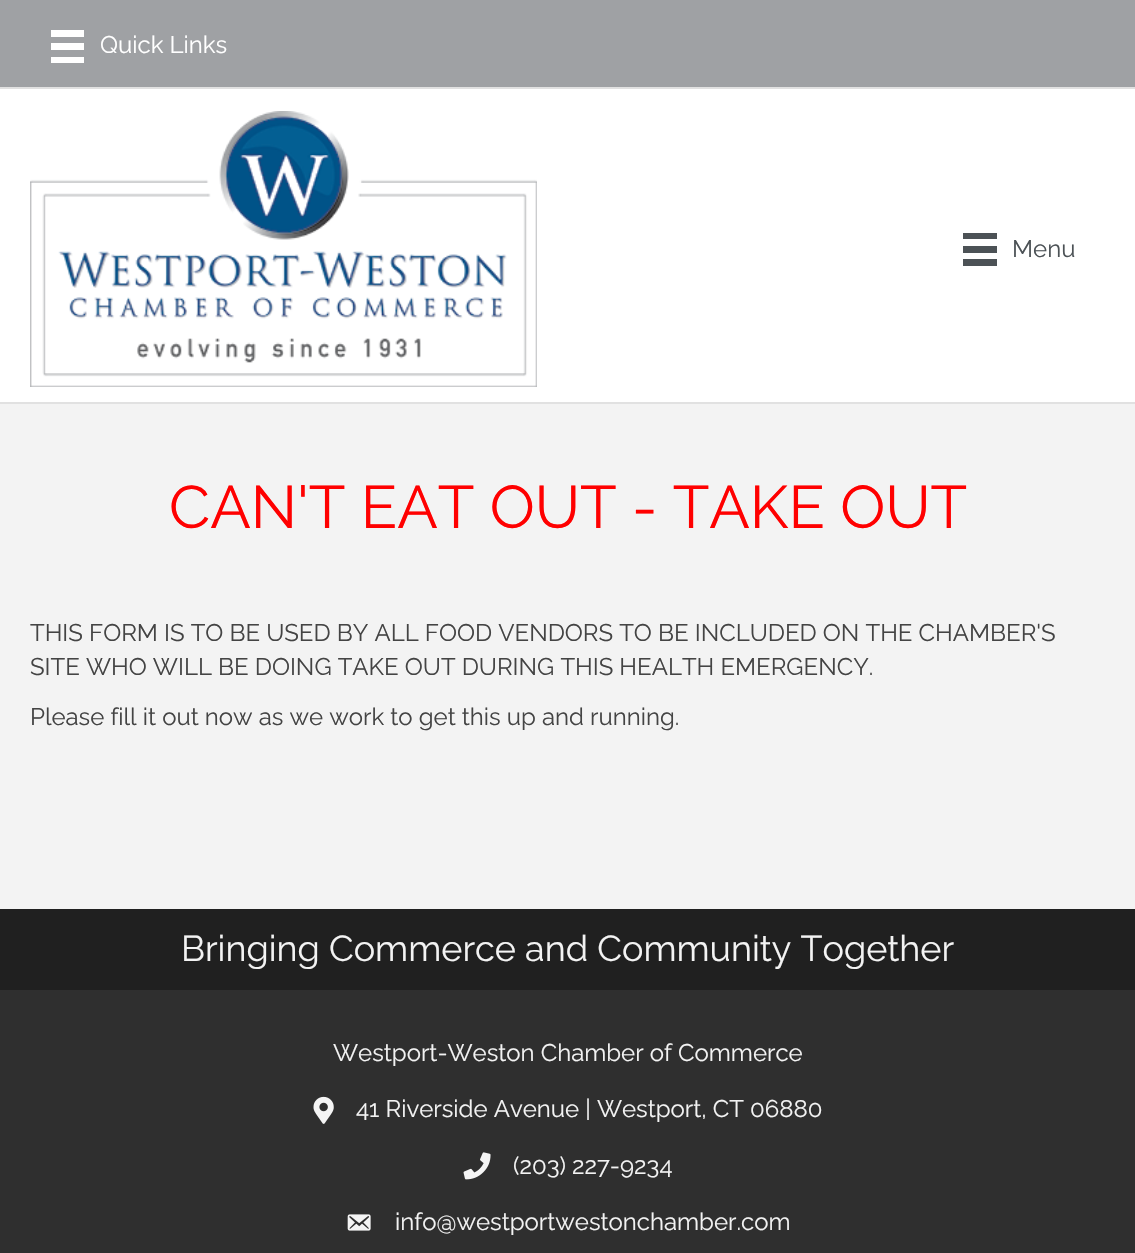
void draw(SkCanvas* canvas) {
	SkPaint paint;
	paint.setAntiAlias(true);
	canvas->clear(0xff9fa1a4);
	paint.setColor(0xffffffff);
	canvas->drawRect(SkRect::MakeXYWH(51, 30, 33, 7), paint);
	canvas->drawRect(SkRect::MakeXYWH(51, 43, 33, 7), paint);
	canvas->drawRect(SkRect::MakeXYWH(51, 57, 33, 6), paint);
	SkFont f1(fontMgr->matchFamilyStyle("Raleway", SkFontStyle::Normal()), 24);
	f1.setSubpixel(true);
	canvas->drawString("Quick Links", 100, 53, f1, paint);
	canvas->drawRect(SkRect::MakeXYWH(0, 89, 1135, 313), paint);
	paint.setColor(0xffe1e1e1);
	canvas->drawRect(SkRect::MakeXYWH(0, 87, 1135, 2), paint);
	canvas->drawRect(SkRect::MakeXYWH(0, 402, 1135, 2), paint);
	canvas->drawImageRect(SkImages::DeferredFromEncodedData(SkData::MakeFromFileName("img1.png")), SkRect::MakeXYWH(30, 111, 507, 276), SkSamplingOptions());
	paint.setColor(0xff4c5256);
	canvas->drawRect(SkRect::MakeXYWH(963, 233, 34, 6), paint);
	canvas->drawRect(SkRect::MakeXYWH(963, 246, 34, 7), paint);
	canvas->drawRect(SkRect::MakeXYWH(963, 259, 34, 7), paint);
	canvas->drawString("Menu", 1012, 257, f1, paint);
	paint.setColor(0xfff3f3f3);
	canvas->drawRect(SkRect::MakeXYWH(0, 404, 1135, 505), paint);
	SkFont f2(fontMgr->matchFamilyStyle("Raleway", SkFontStyle::Normal()), 60);
	f2.setSubpixel(true);
	paint.setColor(0xffff0000);
	canvas->drawString("CAN'T EAT OUT - TAKE OUT", 169, 528, f2, paint);
	paint.setColor(0xff444444);
	canvas->drawString("THIS FORM IS TO BE USED BY ALL FOOD VENDORS TO BE INCLUDED ON THE CHAMBER'S", 30, 641, f1, paint);
	canvas->drawString("SITE WHO WILL BE DOING TAKE OUT DURING THIS HEALTH EMERGENCY.", 30, 675, f1, paint);
	canvas->drawString("Please fill it out now as we work to get this up and running.", 30, 725, f1, paint);
	paint.setColor(0xff202020);
	canvas->drawRect(SkRect::MakeXYWH(0, 909, 1135, 81), paint);
	SkFont f3(fontMgr->matchFamilyStyle("Raleway", SkFontStyle::Normal()), 36);
	f3.setSubpixel(true);
	paint.setColor(0xfff3f3f3);
	canvas->drawString("Bringing Commerce and Community Together", 181, 961, f3, paint);
	paint.setColor(0xff2f2f2f);
	canvas->drawRect(SkRect::MakeXYWH(0, 990, 1135, 263), paint);
	paint.setColor(0xfff3f3f3);
	canvas->drawString("Westport-Weston Chamber of Commerce", 333, 1061, f1, paint);
	canvas->drawImageRect(SkImages::DeferredFromEncodedData(SkData::MakeFromFileName("img2.png")), SkRect::MakeXYWH(313, 1096, 21, 28), SkSamplingOptions());
	canvas->drawString("41 Riverside Avenue | Westport, CT 06880", 356, 1117, f1, paint);
	canvas->drawImageRect(SkImages::DeferredFromEncodedData(SkData::MakeFromFileName("img3.png")), SkRect::MakeXYWH(463, 1152, 28, 28), SkSamplingOptions());
	canvas->drawString("(203) 227-9234", 513, 1174, f1, paint);
	canvas->drawImageRect(SkImages::DeferredFromEncodedData(SkData::MakeFromFileName("img4.png")), SkRect::MakeXYWH(347, 1214, 24, 17), SkSamplingOptions());
	canvas->drawString("info@westportwestonchamber.com", 395, 1230, f1, paint);
}
